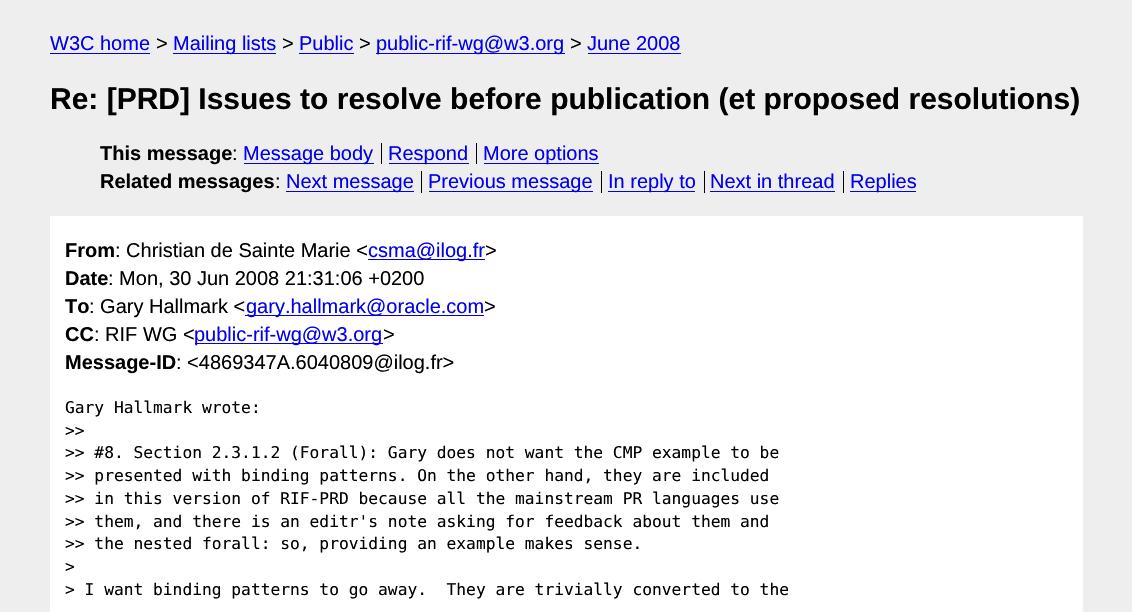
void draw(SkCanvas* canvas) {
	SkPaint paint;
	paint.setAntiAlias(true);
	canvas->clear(0xffeeeeee);
	SkFont f1(fontMgr->matchFamilyStyle("Liberation Sans", SkFontStyle::Normal()), 20);
	f1.setSubpixel(true);
	paint.setColor(0xff0000ee);
	canvas->drawString("W3C home", 50, 50, f1, paint);
	canvas->drawRect(SkRect::MakeXYWH(50, 53, 100, 1), paint);
	paint.setColor(0xff000000);
	canvas->drawString(">", 156, 50, f1, paint);
	paint.setColor(0xff0000ee);
	canvas->drawRect(SkRect::MakeXYWH(173, 53, 103, 1), paint);
	canvas->drawString("Mailing lists", 173, 50, f1, paint);
	paint.setColor(0xff000000);
	canvas->drawString(">", 282, 50, f1, paint);
	paint.setColor(0xff0000ee);
	canvas->drawString("Public", 299, 50, f1, paint);
	canvas->drawRect(SkRect::MakeXYWH(299, 53, 55, 1), paint);
	paint.setColor(0xff000000);
	canvas->drawString(">", 359, 50, f1, paint);
	paint.setColor(0xff0000ee);
	canvas->drawRect(SkRect::MakeXYWH(376, 53, 189, 1), paint);
	canvas->drawString("public-rif-wg@w3.org", 376, 50, f1, paint);
	paint.setColor(0xff000000);
	canvas->drawString(">", 570, 50, f1, paint);
	paint.setColor(0xff0000ee);
	canvas->drawString("June 2008", 587, 50, f1, paint);
	canvas->drawRect(SkRect::MakeXYWH(588, 53, 93, 1), paint);
	SkFont f2(fontMgr->matchFamilyStyle("Liberation Sans", SkFontStyle::Bold()), 30);
	f2.setSubpixel(true);
	paint.setColor(0xff000000);
	canvas->drawString("Re: [PRD] Issues to resolve before publication (et proposed resolutions)", 50, 109, f2, paint);
	SkFont f3(fontMgr->matchFamilyStyle("Liberation Sans", SkFontStyle::Bold()), 20);
	f3.setSubpixel(true);
	canvas->drawString("This message", 100, 160, f3, paint);
	canvas->drawString(":", 232, 160, f1, paint);
	paint.setColor(0xff0000ee);
	canvas->drawRect(SkRect::MakeXYWH(244, 163, 130, 1), paint);
	canvas->drawString("Message body", 243, 160, f1, paint);
	paint.setColor(0xff000000);
	canvas->drawRect(SkRect::MakeXYWH(381, 143, 1, 21), paint);
	paint.setColor(0xff0000ee);
	canvas->drawRect(SkRect::MakeXYWH(389, 163, 80, 1), paint);
	canvas->drawString("Respond", 388, 160, f1, paint);
	canvas->drawRect(SkRect::MakeXYWH(484, 163, 115, 1), paint);
	canvas->drawString("More options", 483, 160, f1, paint);
	paint.setColor(0xff000000);
	canvas->drawRect(SkRect::MakeXYWH(476, 143, 1, 21), paint);
	canvas->drawString("Related messages", 100, 188, f3, paint);
	canvas->drawString(":", 275, 188, f1, paint);
	paint.setColor(0xff0000ee);
	canvas->drawRect(SkRect::MakeXYWH(286, 191, 128, 1), paint);
	canvas->drawString("Next message", 286, 188, f1, paint);
	canvas->drawRect(SkRect::MakeXYWH(429, 191, 164, 1), paint);
	canvas->drawString("Previous message", 428, 188, f1, paint);
	paint.setColor(0xff000000);
	canvas->drawRect(SkRect::MakeXYWH(421, 171, 1, 22), paint);
	paint.setColor(0xff0000ee);
	canvas->drawRect(SkRect::MakeXYWH(608, 191, 87, 1), paint);
	canvas->drawString("In reply to", 608, 188, f1, paint);
	paint.setColor(0xff000000);
	canvas->drawRect(SkRect::MakeXYWH(601, 171, 1, 22), paint);
	paint.setColor(0xff0000ee);
	canvas->drawString("Next in thread", 710, 188, f1, paint);
	paint.setColor(0xff000000);
	canvas->drawRect(SkRect::MakeXYWH(704, 171, 1, 22), paint);
	paint.setColor(0xff0000ee);
	canvas->drawRect(SkRect::MakeXYWH(710, 191, 125, 1), paint);
	canvas->drawRect(SkRect::MakeXYWH(850, 191, 66, 1), paint);
	canvas->drawString("Replies", 850, 188, f1, paint);
	paint.setColor(0xff000000);
	canvas->drawRect(SkRect::MakeXYWH(843, 171, 1, 22), paint);
	paint.setColor(0xffffffff);
	canvas->drawRect(SkRect::MakeXYWH(50, 216, 1033, 396), paint);
	paint.setColor(0xff000000);
	canvas->drawString("From", 65, 257, f3, paint);
	canvas->drawString(": Christian de Sainte Marie <", 115, 257, f1, paint);
	paint.setColor(0xff0000ee);
	canvas->drawRect(SkRect::MakeXYWH(368, 259, 117, 1), paint);
	canvas->drawString("csma@ilog.fr", 368, 257, f1, paint);
	paint.setColor(0xff000000);
	canvas->drawString(">", 485, 257, f1, paint);
	canvas->drawString("Date", 65, 285, f3, paint);
	canvas->drawString(": Mon, 30 Jun 2008 21:31:06 +0200", 108, 285, f1, paint);
	canvas->drawString("To", 65, 313, f3, paint);
	canvas->drawString(": Gary Hallmark <", 89, 313, f1, paint);
	paint.setColor(0xff0000ee);
	canvas->drawRect(SkRect::MakeXYWH(245, 315, 239, 1), paint);
	canvas->drawString("gary.hallmark@oracle.com", 246, 313, f1, paint);
	paint.setColor(0xff000000);
	canvas->drawString(">", 484, 313, f1, paint);
	canvas->drawString("CC", 65, 341, f3, paint);
	canvas->drawString(": RIF WG <", 94, 341, f1, paint);
	paint.setColor(0xff0000ee);
	canvas->drawRect(SkRect::MakeXYWH(195, 343, 188, 1), paint);
	canvas->drawString("public-rif-wg@w3.org", 194, 341, f1, paint);
	paint.setColor(0xff000000);
	canvas->drawString(">", 383, 341, f1, paint);
	canvas->drawString("Message-ID", 65, 369, f3, paint);
	canvas->drawString(": <4869347A.6040809@ilog.fr>", 176, 369, f1, paint);
	SkFont f4(fontMgr->matchFamilyStyle("DejaVu Sans Mono", SkFontStyle::Normal()), 16.25);
	f4.setSubpixel(true);
	canvas->drawString("Gary Hallmark wrote:", 65, 413, f4, paint);
	canvas->drawString(">>", 65, 436, f4, paint);
	canvas->drawString(">> #8. Section 2.3.1.2 (Forall): Gary does not want the CMP example to be", 65, 458, f4, paint);
	canvas->drawString(">> presented with binding patterns. On the other hand, they are included", 65, 481, f4, paint);
	canvas->drawString(">> in this version of RIF-PRD because all the mainstream PR languages use", 65, 504, f4, paint);
	canvas->drawString(">> them, and there is an editr's note asking for feedback about them and", 65, 527, f4, paint);
	canvas->drawString(">> the nested forall: so, providing an example makes sense.", 65, 549, f4, paint);
	canvas->drawString(">", 65, 572, f4, paint);
	canvas->drawString("> I want binding patterns to go away.  They are trivially converted to the", 65, 595, f4, paint);
}
